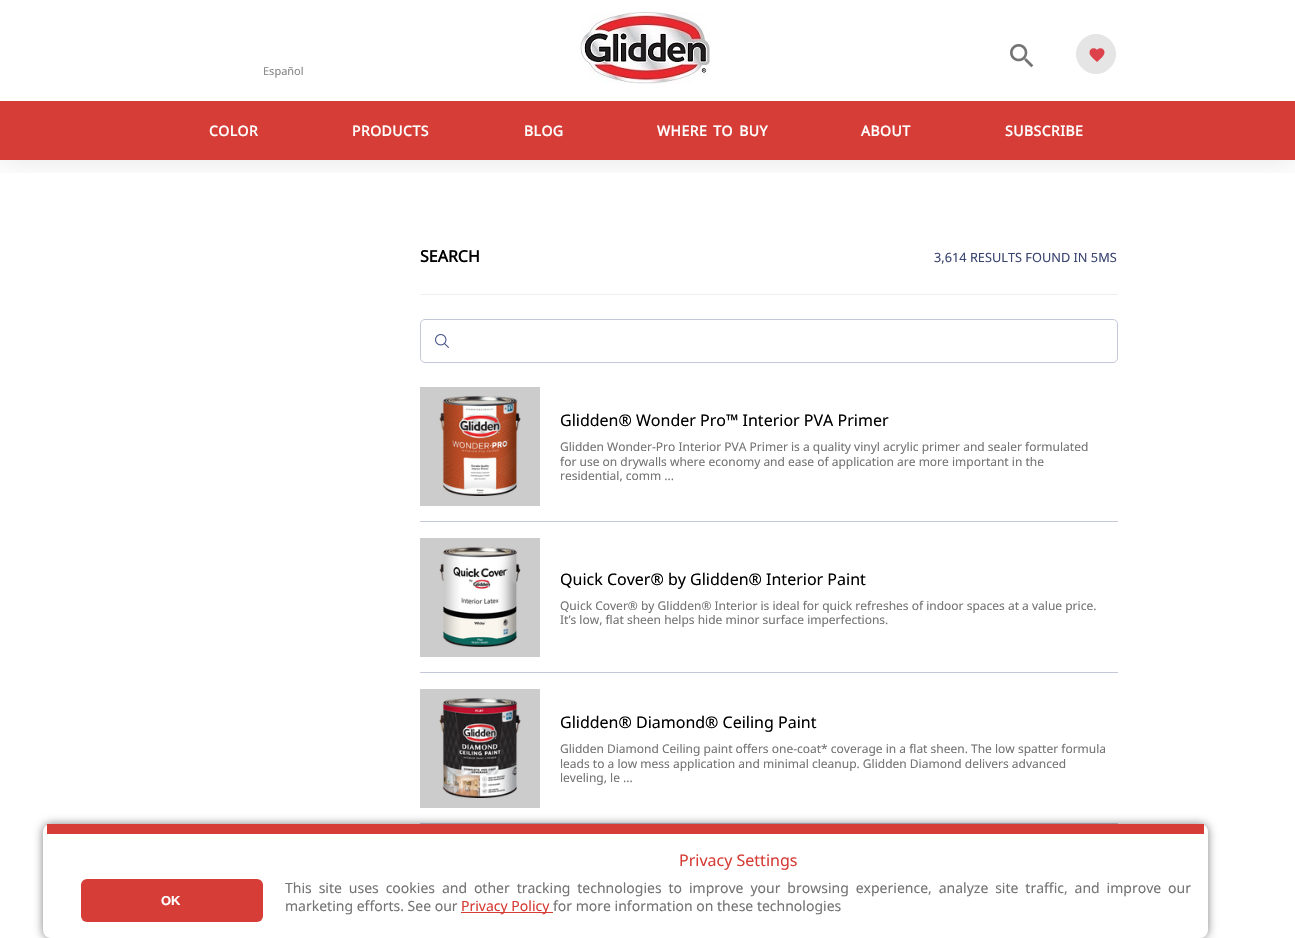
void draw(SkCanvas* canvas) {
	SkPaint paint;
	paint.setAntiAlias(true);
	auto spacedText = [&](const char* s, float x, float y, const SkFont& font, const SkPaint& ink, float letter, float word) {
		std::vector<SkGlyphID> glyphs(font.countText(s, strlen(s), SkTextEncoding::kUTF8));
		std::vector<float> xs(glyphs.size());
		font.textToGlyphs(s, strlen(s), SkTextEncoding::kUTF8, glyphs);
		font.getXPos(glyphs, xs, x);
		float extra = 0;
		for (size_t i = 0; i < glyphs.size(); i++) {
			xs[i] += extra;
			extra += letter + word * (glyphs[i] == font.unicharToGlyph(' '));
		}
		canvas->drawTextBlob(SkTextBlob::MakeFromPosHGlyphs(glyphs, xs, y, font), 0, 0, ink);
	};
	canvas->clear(0xffffffff);
	canvas->save();
	canvas->clipRect(SkRect::MakeXYWH(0, 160, 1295, 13));
	paint.setColor(0x1a000000);
	paint.setMaskFilter(SkMaskFilter::MakeBlur(kNormal_SkBlurStyle, 15));
	canvas->drawRect(SkRect::MakeXYWH(0, 0, 1295, 160), paint);
	paint.setMaskFilter(nullptr);
	canvas->restore();
	canvas->drawImageRect(SkImages::DeferredFromEncodedData(SkData::MakeFromFileName("img1.png")), SkRect::MakeXYWH(580, 12, 131, 72), SkSamplingOptions());
	canvas->drawImageRect(SkImages::DeferredFromEncodedData(SkData::MakeFromFileName("img2.png")), SkRect::MakeXYWH(1010, 44, 24, 24), SkSamplingOptions());
	paint.setColor(0xffe5e5e5);
	canvas->drawCircle(1096, 54, 19.5, paint);
	paint.setStroke(true);
	paint.setStrokeWidth(1);
	canvas->drawCircle(1096, 54, 19.5, paint);
	canvas->drawImageRect(SkImages::DeferredFromEncodedData(SkData::MakeFromFileName("img3.png")), SkRect::MakeXYWH(1089, 48, 16, 14), SkSamplingOptions());
	SkFont f1(fontMgr->matchFamilyStyle("Noto Sans", SkFontStyle::Normal()), 11);
	f1.setSubpixel(true);
	paint.setStroke(false);
	paint.setColor(0xff888888);
	canvas->drawString("Español", 263, 75, f1, paint);
	paint.setColor(0xffd63d36);
	canvas->drawRect(SkRect::MakeXYWH(0, 101, 1295, 59), paint);
	SkFont f2(fontMgr->matchFamilyStyle("Noto Sans", SkFontStyle::Bold()), 14);
	f2.setSubpixel(true);
	paint.setColor(0xffffffff);
	spacedText("COLOR", 209, 136, f2, paint, 0.5, 0);
	spacedText("PRODUCTS", 352, 136, f2, paint, 0.5, 0);
	spacedText("BLOG", 524, 136, f2, paint, 0.5, 0);
	spacedText("WHERE TO BUY", 657, 136, f2, paint, 0.5, 2);
	spacedText("ABOUT", 861, 136, f2, paint, 0.5, 0);
	spacedText("SUBSCRIBE", 1005, 136, f2, paint, 0.5, 0);
	paint.setColor(0xffefefef);
	canvas->drawRect(SkRect::MakeXYWH(420, 294, 698, 1), paint);
	SkFont f3(fontMgr->matchFamilyStyle("Noto Sans", SkFontStyle::Bold()), 16);
	f3.setSubpixel(true);
	paint.setColor(0xff000000);
	canvas->drawString("SEARCH", 420, 262, f3, paint);
	SkFont f4(fontMgr->matchFamilyStyle("Noto Sans", SkFontStyle::Normal()), 12.75);
	f4.setSubpixel(true);
	paint.setColor(0xff3a4570);
	canvas->drawString("3,614 RESULTS FOUND IN 5MS", 934, 262, f4, paint);
	paint.setStroke(true);
	paint.setColor(0xffc4c8d8);
	canvas->drawRoundRect(SkRect::MakeXYWH(420.5, 319.5, 697, 43), 4.5, 4.5, paint);
	canvas->drawImageRect(SkImages::DeferredFromEncodedData(SkData::MakeFromFileName("img4.png")), SkRect::MakeXYWH(435, 334, 14, 14), SkSamplingOptions());
	paint.setStroke(false);
	canvas->drawRect(SkRect::MakeXYWH(420, 521, 698, 1), paint);
	paint.setColor(0xffcccccc);
	canvas->drawRect(SkRect::MakeXYWH(420, 387, 120, 119), paint);
	canvas->drawImageRect(SkImages::DeferredFromEncodedData(SkData::MakeFromFileName("img5.png")), SkRect::MakeXYWH(439, 396, 82, 100), SkSamplingOptions());
	SkFont f5(fontMgr->matchFamilyStyle("Noto Sans", SkFontStyle::Normal()), 16);
	f5.setSubpixel(true);
	paint.setColor(0xff000000);
	canvas->drawString("Glidden® Wonder Pro™ Interior PVA Primer", 560, 426, f5, paint);
	SkFont f6(fontMgr->matchFamilyStyle("Noto Sans", SkFontStyle::Normal()), 12);
	f6.setSubpixel(true);
	paint.setColor(0xff747474);
	canvas->drawString("Glidden Wonder-Pro Interior PVA Primer is a quality vinyl acrylic primer and sealer formulated", 560, 451, f6, paint);
	canvas->drawString("for use on drywalls where economy and ease of application are more important in the", 560, 466, f6, paint);
	canvas->drawString("residential, comm ...", 560, 480, f6, paint);
	paint.setColor(0xffc4c8d8);
	canvas->drawRect(SkRect::MakeXYWH(420, 672, 698, 1), paint);
	paint.setColor(0xffcccccc);
	canvas->drawRect(SkRect::MakeXYWH(420, 538, 120, 119), paint);
	canvas->drawImageRect(SkImages::DeferredFromEncodedData(SkData::MakeFromFileName("img6.png")), SkRect::MakeXYWH(439, 547, 82, 100), SkSamplingOptions());
	paint.setColor(0xff000000);
	canvas->drawString("Quick Cover® by Glidden® Interior Paint", 560, 585, f5, paint);
	paint.setColor(0xff747474);
	canvas->drawString("Quick Cover® by Glidden® Interior is ideal for quick refreshes of indoor spaces at a value price.", 560, 610, f6, paint);
	canvas->drawString("It’s low, flat sheen helps hide minor surface imperfections.", 560, 624, f6, paint);
	paint.setColor(0xffc4c8d8);
	canvas->drawRect(SkRect::MakeXYWH(420, 823, 698, 1), paint);
	paint.setColor(0xffcccccc);
	canvas->drawRect(SkRect::MakeXYWH(420, 689, 120, 119), paint);
	canvas->drawImageRect(SkImages::DeferredFromEncodedData(SkData::MakeFromFileName("img7.png")), SkRect::MakeXYWH(439, 698, 82, 100), SkSamplingOptions());
	paint.setColor(0xff000000);
	canvas->drawString("Glidden® Diamond® Ceiling Paint", 560, 728, f5, paint);
	paint.setColor(0xff747474);
	canvas->drawString("Glidden Diamond Ceiling paint offers one-coat* coverage in a flat sheen. The low spatter formula", 560, 753, f6, paint);
	canvas->drawString("leads to a low mess application and minimal cleanup. Glidden Diamond delivers advanced", 560, 768, f6, paint);
	canvas->drawString("leveling, le ...", 560, 782, f6, paint);
	paint.setColor(0x80000000);
	paint.setMaskFilter(SkMaskFilter::MakeBlur(kNormal_SkBlurStyle, 5));
	canvas->drawRoundRect(SkRect::MakeXYWH(43, 824, 1165, 114), 8, 8, paint);
	paint.setMaskFilter(nullptr);
	paint.setColor(0xffffffff);
	canvas->drawRoundRect(SkRect::MakeXYWH(43, 824, 1165, 114), 8, 8, paint);
	paint.setColor(0xffd63d36);
	canvas->drawRect(SkRect::MakeXYWH(47, 824, 1157, 10), paint);
	canvas->drawString("Privacy Settings", 679, 866, f5, paint);
	canvas->drawRoundRect(SkRect::MakeXYWH(81, 879, 182, 43), 6, 6, paint);
	SkFont f7(fontMgr->matchFamilyStyle("Liberation Sans", SkFontStyle::Bold()), 13);
	f7.setSubpixel(true);
	paint.setColor(0xffffffff);
	canvas->drawString("OK", 161, 905, f7, paint);
	SkFont f8(fontMgr->matchFamilyStyle("Noto Sans", SkFontStyle::Normal()), 14);
	f8.setSubpixel(true);
	paint.setColor(0xff747474);
	spacedText("This site uses cookies and other tracking technologies to improve your browsing experience, analyze site traffic, and improve our", 285, 893, f8, paint, 0, 3.25);
	canvas->drawString("marketing efforts. See our", 285, 911, f8, paint);
	paint.setColor(0xffd63d36);
	canvas->drawRect(SkRect::MakeXYWH(461, 912, 92, 1), paint);
	canvas->drawString("Privacy Policy", 461, 911, f8, paint);
	paint.setColor(0xff747474);
	canvas->drawString("for more information on these technologies", 553, 911, f8, paint);
}
